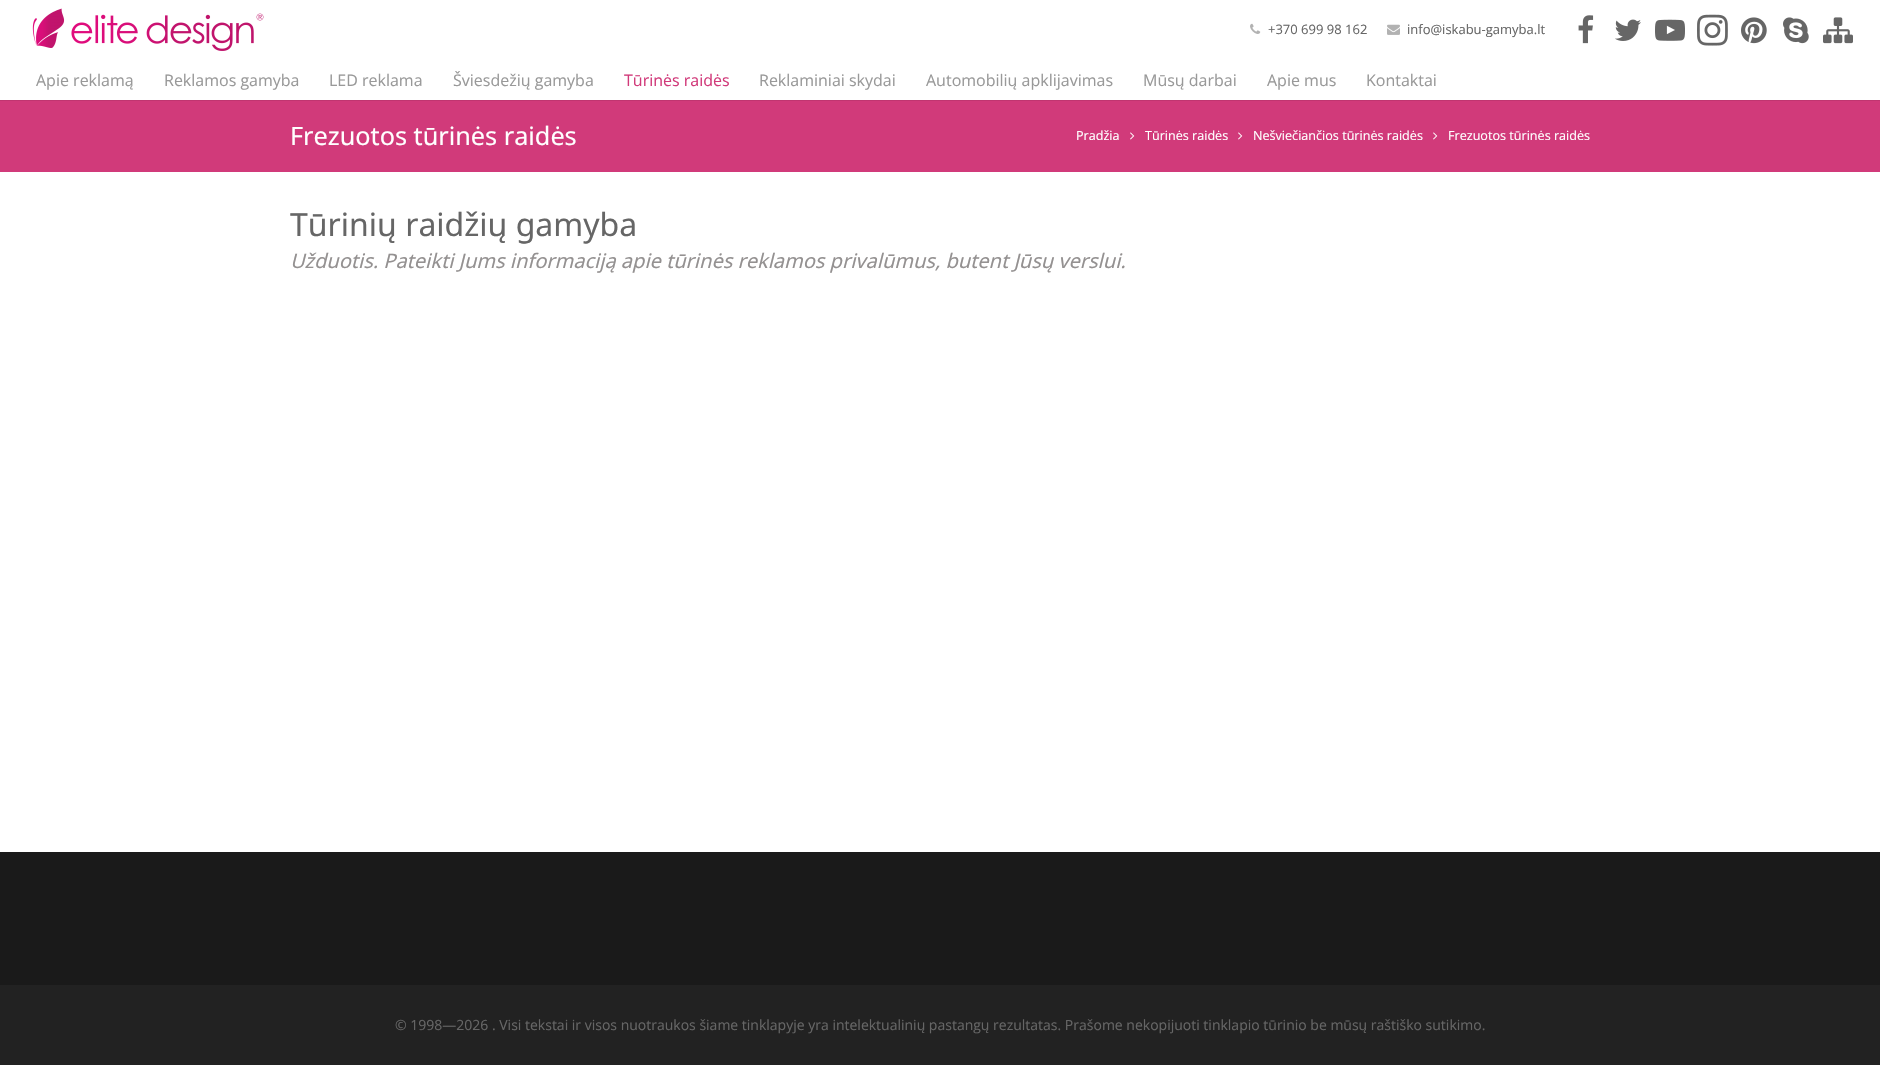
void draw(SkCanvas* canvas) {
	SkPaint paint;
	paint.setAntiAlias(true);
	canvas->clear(0xffffffff);
	canvas->drawImageRect(SkImages::DeferredFromEncodedData(SkData::MakeFromFileName("img1.png")), SkRect::MakeXYWH(32, 8, 232, 43), SkSamplingOptions());
	canvas->drawImageRect(SkImages::DeferredFromEncodedData(SkData::MakeFromFileName("img2.png")), SkRect::MakeXYWH(1250, 23, 11, 11), SkSamplingOptions());
	SkFont f1(fontMgr->matchFamilyStyle("Open Sans", SkFontStyle::Normal()), 13);
	f1.setSubpixel(true);
	paint.setColor(0xff666666);
	canvas->drawString("+370 699 98 162", 1268, 34, f1, paint);
	canvas->drawImageRect(SkImages::DeferredFromEncodedData(SkData::MakeFromFileName("img3.png")), SkRect::MakeXYWH(1387, 24, 13, 11), SkSamplingOptions());
	canvas->drawString("info@iskabu-gamyba.lt", 1407, 34, f1, paint);
	canvas->drawImageRect(SkImages::DeferredFromEncodedData(SkData::MakeFromFileName("img4.png")), SkRect::MakeXYWH(1578, 15, 16, 29), SkSamplingOptions());
	canvas->drawImageRect(SkImages::DeferredFromEncodedData(SkData::MakeFromFileName("img5.png")), SkRect::MakeXYWH(1615, 19, 26, 22), SkSamplingOptions());
	canvas->drawImageRect(SkImages::DeferredFromEncodedData(SkData::MakeFromFileName("img6.png")), SkRect::MakeXYWH(1655, 19, 30, 22), SkSamplingOptions());
	canvas->drawImageRect(SkImages::DeferredFromEncodedData(SkData::MakeFromFileName("img7.png")), SkRect::MakeXYWH(1697, 14, 31, 32), SkSamplingOptions());
	canvas->drawImageRect(SkImages::DeferredFromEncodedData(SkData::MakeFromFileName("img8.png")), SkRect::MakeXYWH(1741, 17, 26, 27), SkSamplingOptions());
	canvas->drawImageRect(SkImages::DeferredFromEncodedData(SkData::MakeFromFileName("img9.png")), SkRect::MakeXYWH(1783, 17, 26, 27), SkSamplingOptions());
	canvas->drawImageRect(SkImages::DeferredFromEncodedData(SkData::MakeFromFileName("img10.png")), SkRect::MakeXYWH(1823, 17, 30, 27), SkSamplingOptions());
	paint.setColor(0xffc03570);
	canvas->drawRect(SkRect::MakeXYWH(0, 100, 1880, 1), paint);
	SkFont f2(fontMgr->matchFamilyStyle("Open Sans", SkFontStyle::Normal()), 16);
	f2.setSubpixel(true);
	paint.setColor(0xff999999);
	canvas->drawString("Apie reklamą", 36, 86, f2, paint);
	canvas->drawString("Reklamos gamyba", 164, 86, f2, paint);
	canvas->drawString("LED reklama", 329, 86, f2, paint);
	canvas->drawString("Šviesdežių gamyba", 453, 86, f2, paint);
	paint.setColor(0xffd13a7a);
	canvas->drawString("Tūrinės raidės", 624, 86, f2, paint);
	paint.setColor(0xff999999);
	canvas->drawString("Reklaminiai skydai", 759, 86, f2, paint);
	canvas->drawString("Automobilių apklijavimas", 926, 86, f2, paint);
	canvas->drawString("Mūsų darbai", 1143, 86, f2, paint);
	canvas->drawString("Apie mus", 1267, 86, f2, paint);
	canvas->drawString("Kontaktai", 1366, 86, f2, paint);
	paint.setColor(0xffd13a7a);
	canvas->drawRect(SkRect::MakeXYWH(0, 101, 1880, 71), paint);
	SkFont f3(fontMgr->matchFamilyStyle("Noto Sans", SkFontStyle::Normal()), 25.25);
	f3.setSubpixel(true);
	paint.setColor(0xffffffff);
	canvas->drawString("Frezuotos tūrinės raidės", 290, 145, f3, paint);
	SkFont f4(fontMgr->matchFamilyStyle("Open Sans", SkFontStyle::Normal()), 12.6);
	f4.setSubpixel(true);
	canvas->drawString("Pradžia", 1076, 140, f4, paint);
	canvas->drawImageRect(SkImages::DeferredFromEncodedData(SkData::MakeFromFileName("img11.png")), SkRect::MakeXYWH(1130, 132, 5, 8), SkSamplingOptions());
	canvas->drawString("Tūrinės raidės", 1145, 140, f4, paint);
	canvas->drawImageRect(SkImages::DeferredFromEncodedData(SkData::MakeFromFileName("img11.png")), SkRect::MakeXYWH(1238, 132, 5, 8), SkSamplingOptions());
	canvas->drawString("Nešviečiančios tūrinės raidės", 1253, 140, f4, paint);
	canvas->drawImageRect(SkImages::DeferredFromEncodedData(SkData::MakeFromFileName("img11.png")), SkRect::MakeXYWH(1433, 132, 5, 8), SkSamplingOptions());
	canvas->drawString("Frezuotos tūrinės raidės", 1448, 140, f4, paint);
	SkFont f5(fontMgr->matchFamilyStyle("Noto Sans", SkFontStyle::Normal()), 32);
	f5.setSubpixel(true);
	paint.setColor(0xff666666);
	canvas->drawString("Tūrinių raidžių gamyba", 290, 236, f5, paint);
	SkFont f6(fontMgr->matchFamilyStyle("Noto Sans", SkFontStyle::Italic()), 20);
	f6.setSubpixel(true);
	paint.setColor(0xff949191);
	canvas->drawString("Užduotis. Pateikti Jums informaciją apie tūrinės reklamos privalūmus, butent Jūsų verslui.", 290, 268, f6, paint);
	paint.setColor(0xff1a1a1a);
	canvas->drawRect(SkRect::MakeXYWH(0, 852, 1880, 133), paint);
	paint.setColor(0xff222222);
	canvas->drawRect(SkRect::MakeXYWH(0, 985, 1880, 80), paint);
	SkFont f7(fontMgr->matchFamilyStyle("Open Sans", SkFontStyle::Normal()), 14);
	f7.setSubpixel(true);
	paint.setColor(0xff666666);
	canvas->drawString("© 1998—2026 . Visi tekstai ir visos nuotraukos šiame tinklapyje yra intelektualinių pastangų rezultatas. Prašome nekopijuoti tinklapio tūrinio be mūsų raštiško sutikimo.", 395, 1030, f7, paint);
}
